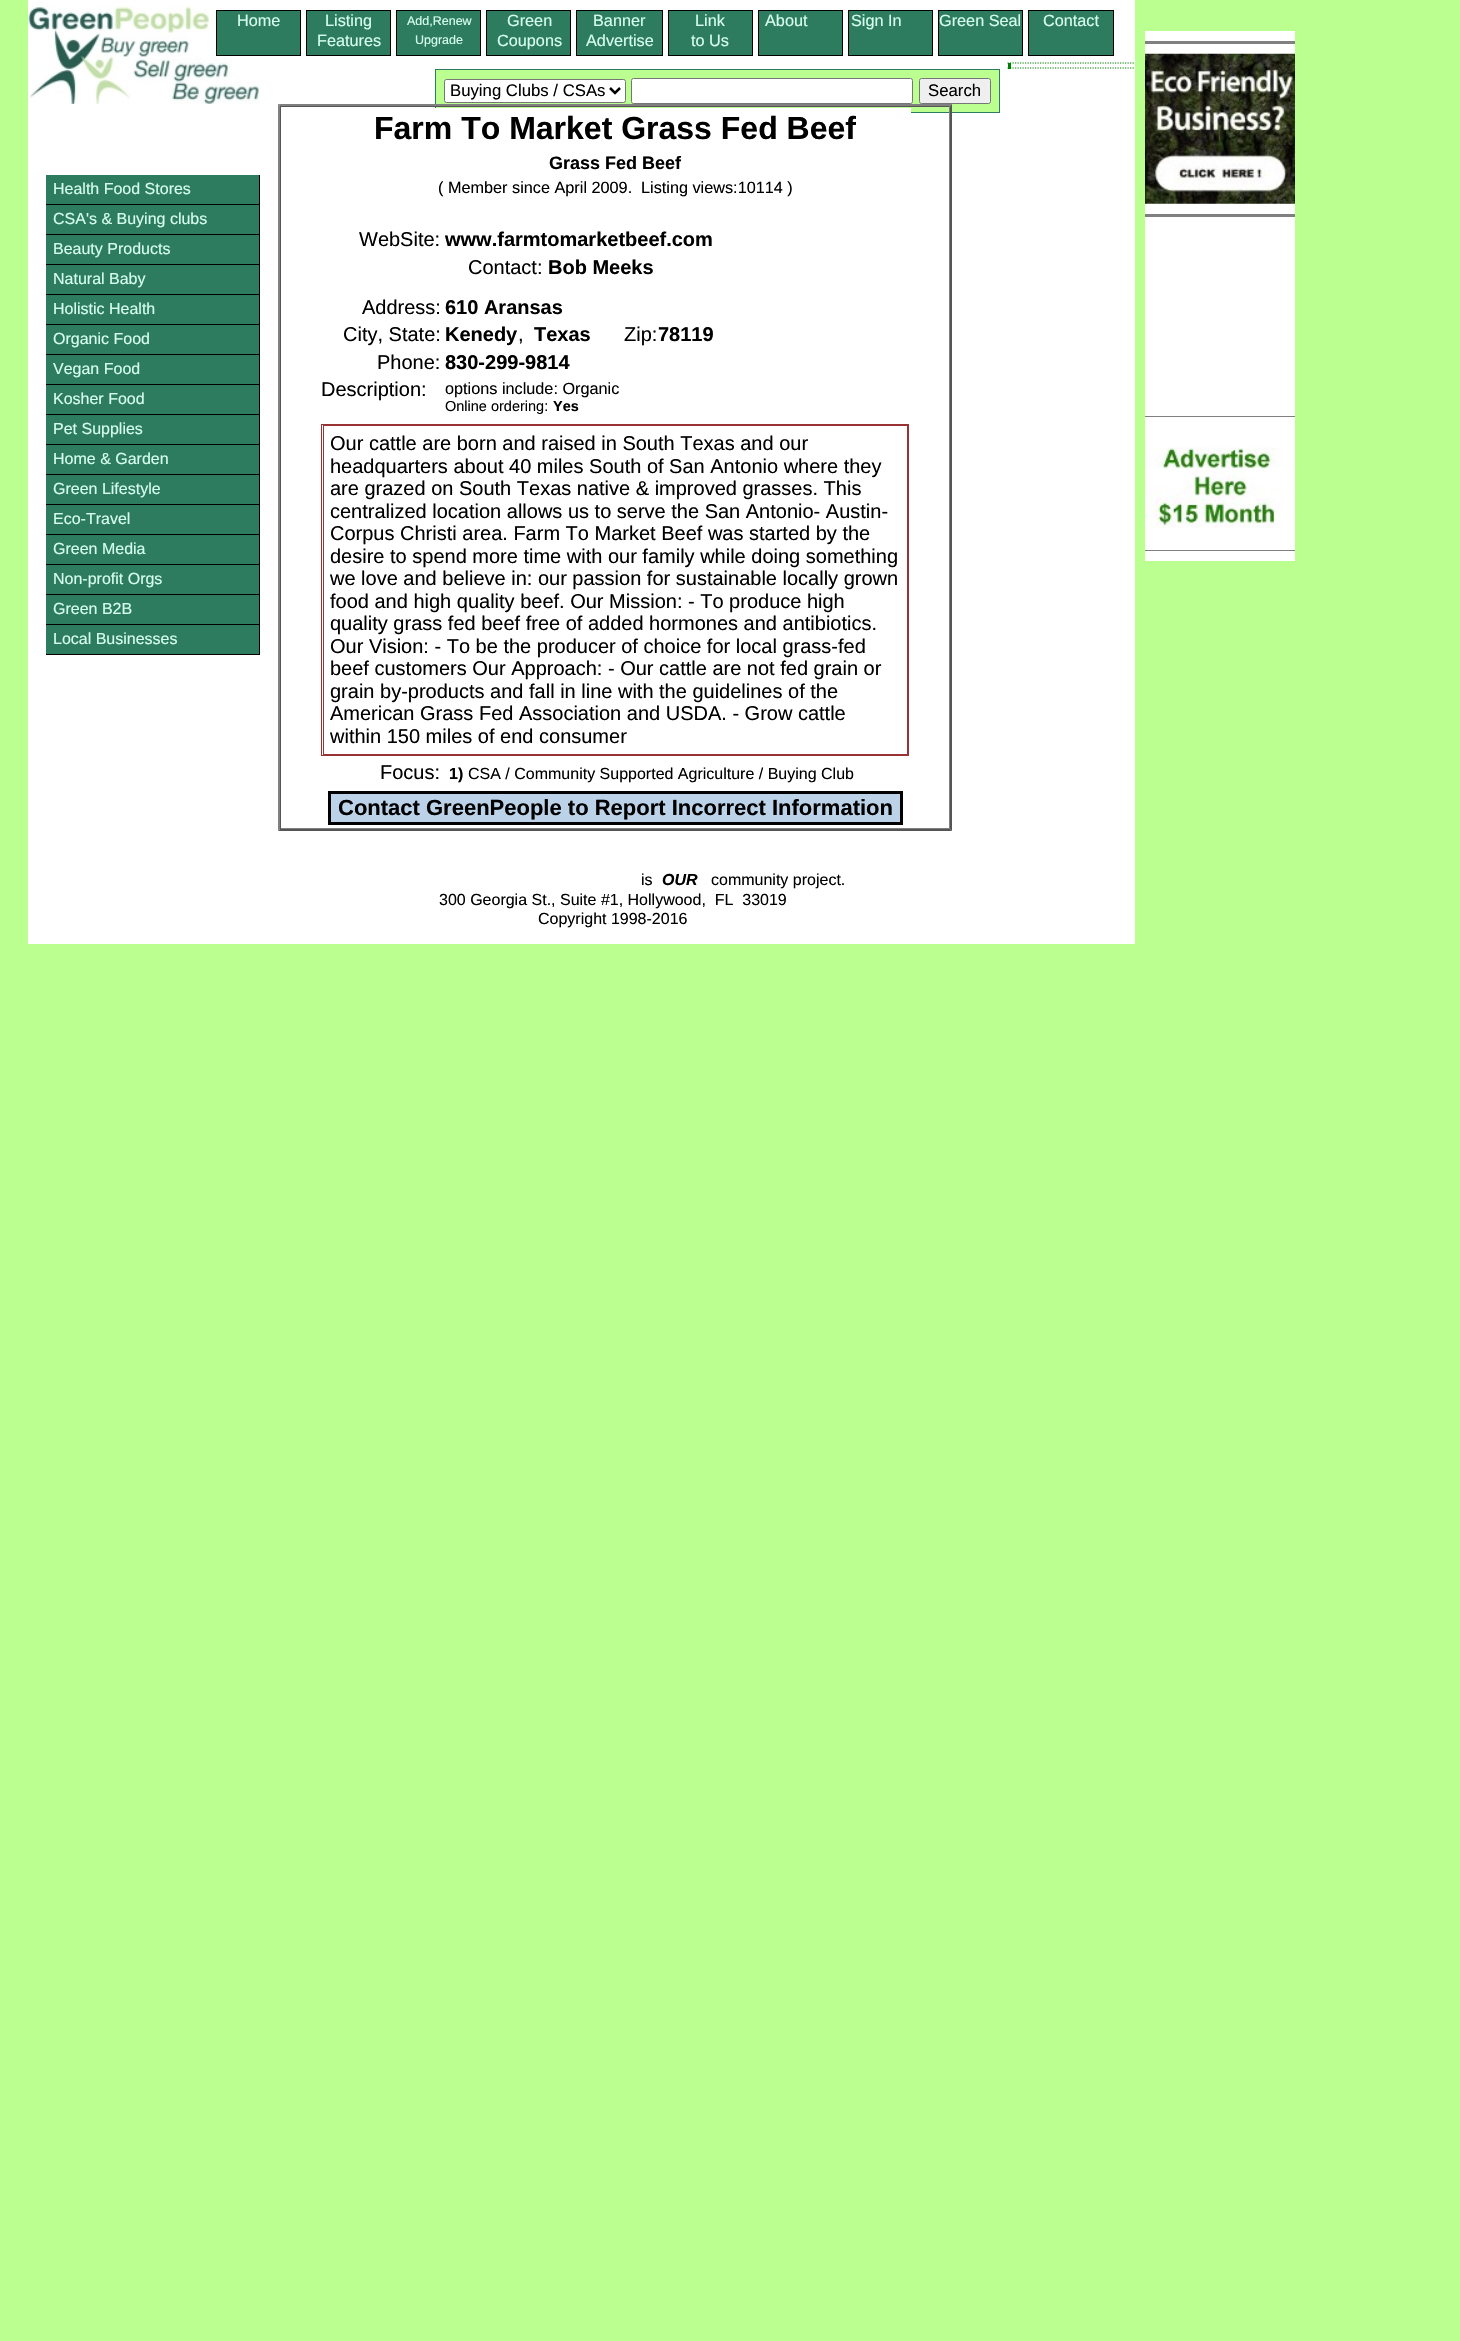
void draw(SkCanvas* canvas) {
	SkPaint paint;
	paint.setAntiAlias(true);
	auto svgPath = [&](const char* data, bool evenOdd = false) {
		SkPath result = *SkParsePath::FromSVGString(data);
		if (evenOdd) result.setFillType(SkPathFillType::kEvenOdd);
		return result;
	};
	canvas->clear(0xffbcff91);
	paint.setColor(0xffffffff);
	canvas->drawRect(SkRect::MakeXYWH(28, 0, 1107, 944), paint);
	canvas->drawImageRect(SkImages::DeferredFromEncodedData(SkData::MakeFromFileName("img1.png")), SkRect::MakeXYWH(28, 5, 232, 99), SkSamplingOptions());
	paint.setColor(0xff2d7c60);
	canvas->drawRect(SkRect::MakeXYWH(216.5, 10.5, 84, 45), paint);
	paint.setStroke(true);
	paint.setStrokeWidth(1);
	paint.setColor(0xff000000);
	canvas->drawRect(SkRect::MakeXYWH(216.5, 10.5, 84, 45), paint);
	SkFont f1(fontMgr->matchFamilyStyle("Liberation Sans", SkFontStyle::Normal()), 16.25);
	f1.setSubpixel(true);
	paint.setStroke(false);
	paint.setColor(0xffd7fff1);
	canvas->drawString("Home", 237, 26, f1, paint);
	paint.setColor(0xff2d7c60);
	canvas->drawRect(SkRect::MakeXYWH(306.5, 10.5, 84, 45), paint);
	paint.setStroke(true);
	paint.setColor(0xff000000);
	canvas->drawRect(SkRect::MakeXYWH(306.5, 10.5, 84, 45), paint);
	paint.setStroke(false);
	paint.setColor(0xffd7fff1);
	canvas->drawString("Listing", 325, 26, f1, paint);
	canvas->drawString("Features", 317, 46, f1, paint);
	paint.setColor(0xff2d7c60);
	canvas->drawRect(SkRect::MakeXYWH(396.5, 10.5, 84, 45), paint);
	paint.setStroke(true);
	paint.setColor(0xff000000);
	canvas->drawRect(SkRect::MakeXYWH(396.5, 10.5, 84, 45), paint);
	SkFont f2(fontMgr->matchFamilyStyle("Liberation Sans", SkFontStyle::Normal()), 12.5);
	f2.setSubpixel(true);
	paint.setStroke(false);
	paint.setColor(0xffd7fff1);
	canvas->drawString("Add,Renew", 407, 25, f2, paint);
	canvas->drawString("Upgrade", 415, 44, f2, paint);
	paint.setColor(0xff2d7c60);
	canvas->drawRect(SkRect::MakeXYWH(486.5, 10.5, 84, 45), paint);
	paint.setStroke(true);
	paint.setColor(0xff000000);
	canvas->drawRect(SkRect::MakeXYWH(486.5, 10.5, 84, 45), paint);
	paint.setStroke(false);
	paint.setColor(0xffd7fff1);
	canvas->drawString("Green", 507, 26, f1, paint);
	canvas->drawString("Coupons", 497, 46, f1, paint);
	paint.setColor(0xff2d7c60);
	canvas->drawRect(SkRect::MakeXYWH(576.5, 10.5, 86, 45), paint);
	paint.setStroke(true);
	paint.setColor(0xff000000);
	canvas->drawRect(SkRect::MakeXYWH(576.5, 10.5, 86, 45), paint);
	paint.setStroke(false);
	paint.setColor(0xffd7fff1);
	canvas->drawString("Banner", 593, 26, f1, paint);
	canvas->drawString("Advertise", 586, 46, f1, paint);
	paint.setColor(0xff2d7c60);
	canvas->drawRect(SkRect::MakeXYWH(668.5, 10.5, 84, 45), paint);
	paint.setStroke(true);
	paint.setColor(0xff000000);
	canvas->drawRect(SkRect::MakeXYWH(668.5, 10.5, 84, 45), paint);
	paint.setStroke(false);
	paint.setColor(0xffd7fff1);
	canvas->drawString("Link", 695, 26, f1, paint);
	canvas->drawString("to Us", 691, 46, f1, paint);
	paint.setColor(0xff2d7c60);
	canvas->drawRect(SkRect::MakeXYWH(758.5, 10.5, 84, 45), paint);
	paint.setStroke(true);
	paint.setColor(0xff000000);
	canvas->drawRect(SkRect::MakeXYWH(758.5, 10.5, 84, 45), paint);
	paint.setStroke(false);
	paint.setColor(0xffd7fff1);
	canvas->drawString("About", 765, 26, f1, paint);
	paint.setColor(0xff2d7c60);
	canvas->drawRect(SkRect::MakeXYWH(848.5, 10.5, 84, 45), paint);
	paint.setStroke(true);
	paint.setColor(0xff000000);
	canvas->drawRect(SkRect::MakeXYWH(848.5, 10.5, 84, 45), paint);
	paint.setStroke(false);
	paint.setColor(0xffd7fff1);
	canvas->drawString("Sign In", 851, 26, f1, paint);
	paint.setColor(0xff2d7c60);
	canvas->drawRect(SkRect::MakeXYWH(938.5, 10.5, 84, 45), paint);
	paint.setStroke(true);
	paint.setColor(0xff000000);
	canvas->drawRect(SkRect::MakeXYWH(938.5, 10.5, 84, 45), paint);
	paint.setStroke(false);
	paint.setColor(0xffd7fff1);
	canvas->drawString("Green Seal", 939, 26, f1, paint);
	paint.setColor(0xff2d7c60);
	canvas->drawRect(SkRect::MakeXYWH(1028.5, 10.5, 85, 45), paint);
	paint.setStroke(true);
	paint.setColor(0xff000000);
	canvas->drawRect(SkRect::MakeXYWH(1028.5, 10.5, 85, 45), paint);
	paint.setStroke(false);
	paint.setColor(0xffd7fff1);
	canvas->drawString("Contact", 1043, 26, f1, paint);
	paint.setStroke(true);
	paint.setStrokeWidth(1.2);
	paint.setColor(0xff008000);
	paint.setPathEffect(SkDashPathEffect::Make({{1.25f, 1.25f}}, 0));
	canvas->drawPath(svgPath("M1007.5 63H1135"), paint);
	paint.setPathEffect(nullptr);
	paint.setPathEffect(SkDashPathEffect::Make({{1.25f, 1.25f}}, 0));
	canvas->drawPath(svgPath("M1007.5 68H1135"), paint);
	paint.setPathEffect(nullptr);
	paint.setStroke(false);
	canvas->drawRect(SkRect::MakeXYWH(1008, 63, 3, 6), paint);
	paint.setColor(0xffbcff91);
	canvas->drawRect(SkRect::MakeXYWH(435.5, 69.5, 564, 43), paint);
	paint.setStroke(true);
	paint.setStrokeWidth(1);
	paint.setColor(0xff2d7c60);
	canvas->drawRect(SkRect::MakeXYWH(435.5, 69.5, 564, 43), paint);
	paint.setStroke(false);
	paint.setColor(0xffffffff);
	canvas->drawRoundRect(SkRect::MakeXYWH(444.5, 79.5, 181, 23), 2, 2, paint);
	paint.setStroke(true);
	paint.setColor(0xff767676);
	canvas->drawRoundRect(SkRect::MakeXYWH(444.5, 79.5, 181, 23), 2, 2, paint);
	paint.setStrokeWidth(2.5);
	paint.setColor(0xff000000);
	canvas->drawPath(svgPath("M610 88L615 93L620 88"), paint);
	SkFont f3(fontMgr->matchFamilyStyle("Liberation Sans", SkFontStyle::Normal()), 16.75);
	f3.setSubpixel(true);
	paint.setStroke(false);
	canvas->drawString("Buying Clubs / CSAs", 450, 96, f3, paint);
	paint.setColor(0xffffffff);
	canvas->drawRoundRect(SkRect::MakeXYWH(631.5, 78.5, 281, 25), 2, 2, paint);
	paint.setStroke(true);
	paint.setStrokeWidth(1);
	paint.setColor(0xff767676);
	canvas->drawRoundRect(SkRect::MakeXYWH(631.5, 78.5, 281, 25), 2, 2, paint);
	paint.setStroke(false);
	paint.setColor(0xffefefef);
	canvas->drawRoundRect(SkRect::MakeXYWH(919.5, 78.5, 71, 25), 2, 2, paint);
	paint.setStroke(true);
	paint.setColor(0xff767676);
	canvas->drawRoundRect(SkRect::MakeXYWH(919.5, 78.5, 71, 25), 2, 2, paint);
	paint.setStroke(false);
	paint.setColor(0xff000000);
	canvas->drawString("Search", 928, 96, f3, paint);
	paint.setColor(0xff2d7c60);
	canvas->drawRect(SkRect::MakeXYWH(46, 175, 213, 29), paint);
	paint.setColor(0xff000000);
	canvas->drawRect(SkRect::MakeXYWH(259, 175, 1, 480), paint);
	canvas->drawRect(SkRect::MakeXYWH(46, 204, 214, 1), paint);
	SkFont f4(fontMgr->matchFamilyStyle("Liberation Sans", SkFontStyle::Normal()), 16);
	f4.setSubpixel(true);
	paint.setColor(0xffd7fff1);
	canvas->drawString("Health Food Stores", 53, 194, f4, paint);
	paint.setColor(0xff2d7c60);
	canvas->drawRect(SkRect::MakeXYWH(46, 205, 213, 29), paint);
	paint.setColor(0xff000000);
	canvas->drawRect(SkRect::MakeXYWH(46, 234, 214, 1), paint);
	paint.setColor(0xffd7fff1);
	canvas->drawString("CSA's & Buying clubs", 53, 224, f4, paint);
	paint.setColor(0xff2d7c60);
	canvas->drawRect(SkRect::MakeXYWH(46, 235, 213, 29), paint);
	paint.setColor(0xff000000);
	canvas->drawRect(SkRect::MakeXYWH(46, 264, 214, 1), paint);
	paint.setColor(0xffd7fff1);
	canvas->drawString("Beauty Products", 53, 254, f4, paint);
	paint.setColor(0xff2d7c60);
	canvas->drawRect(SkRect::MakeXYWH(46, 265, 213, 29), paint);
	paint.setColor(0xff000000);
	canvas->drawRect(SkRect::MakeXYWH(46, 294, 214, 1), paint);
	paint.setColor(0xffd7fff1);
	canvas->drawString("Natural Baby", 53, 284, f4, paint);
	paint.setColor(0xff2d7c60);
	canvas->drawRect(SkRect::MakeXYWH(46, 295, 213, 29), paint);
	paint.setColor(0xff000000);
	canvas->drawRect(SkRect::MakeXYWH(46, 324, 214, 1), paint);
	paint.setColor(0xffd7fff1);
	canvas->drawString("Holistic Health", 53, 314, f4, paint);
	paint.setColor(0xff2d7c60);
	canvas->drawRect(SkRect::MakeXYWH(46, 325, 213, 29), paint);
	paint.setColor(0xff000000);
	canvas->drawRect(SkRect::MakeXYWH(46, 354, 214, 1), paint);
	paint.setColor(0xffd7fff1);
	canvas->drawString("Organic Food", 53, 344, f4, paint);
	paint.setColor(0xff2d7c60);
	canvas->drawRect(SkRect::MakeXYWH(46, 355, 213, 29), paint);
	paint.setColor(0xff000000);
	canvas->drawRect(SkRect::MakeXYWH(46, 384, 214, 1), paint);
	paint.setColor(0xffd7fff1);
	canvas->drawString("Vegan Food", 53, 374, f4, paint);
	paint.setColor(0xff2d7c60);
	canvas->drawRect(SkRect::MakeXYWH(46, 385, 213, 29), paint);
	paint.setColor(0xff000000);
	canvas->drawRect(SkRect::MakeXYWH(46, 414, 214, 1), paint);
	paint.setColor(0xffd7fff1);
	canvas->drawString("Kosher Food", 53, 404, f4, paint);
	paint.setColor(0xff2d7c60);
	canvas->drawRect(SkRect::MakeXYWH(46, 415, 213, 29), paint);
	paint.setColor(0xff000000);
	canvas->drawRect(SkRect::MakeXYWH(46, 444, 214, 1), paint);
	paint.setColor(0xffd7fff1);
	canvas->drawString("Pet Supplies", 53, 434, f4, paint);
	paint.setColor(0xff2d7c60);
	canvas->drawRect(SkRect::MakeXYWH(46, 445, 213, 29), paint);
	paint.setColor(0xff000000);
	canvas->drawRect(SkRect::MakeXYWH(46, 474, 214, 1), paint);
	paint.setColor(0xffd7fff1);
	canvas->drawString("Home & Garden", 53, 464, f4, paint);
	paint.setColor(0xff2d7c60);
	canvas->drawRect(SkRect::MakeXYWH(46, 475, 213, 29), paint);
	paint.setColor(0xff000000);
	canvas->drawRect(SkRect::MakeXYWH(46, 504, 214, 1), paint);
	paint.setColor(0xffd7fff1);
	canvas->drawString("Green Lifestyle", 53, 494, f4, paint);
	paint.setColor(0xff2d7c60);
	canvas->drawRect(SkRect::MakeXYWH(46, 505, 213, 29), paint);
	paint.setColor(0xff000000);
	canvas->drawRect(SkRect::MakeXYWH(46, 534, 214, 1), paint);
	paint.setColor(0xffd7fff1);
	canvas->drawString("Eco-Travel", 53, 524, f4, paint);
	paint.setColor(0xff2d7c60);
	canvas->drawRect(SkRect::MakeXYWH(46, 535, 213, 29), paint);
	paint.setColor(0xff000000);
	canvas->drawRect(SkRect::MakeXYWH(46, 564, 214, 1), paint);
	paint.setColor(0xffd7fff1);
	canvas->drawString("Green Media", 53, 554, f4, paint);
	paint.setColor(0xff2d7c60);
	canvas->drawRect(SkRect::MakeXYWH(46, 565, 213, 29), paint);
	paint.setColor(0xff000000);
	canvas->drawRect(SkRect::MakeXYWH(46, 594, 214, 1), paint);
	paint.setColor(0xffd7fff1);
	canvas->drawString("Non-profit Orgs", 53, 584, f4, paint);
	paint.setColor(0xff2d7c60);
	canvas->drawRect(SkRect::MakeXYWH(46, 595, 213, 29), paint);
	paint.setColor(0xff000000);
	canvas->drawRect(SkRect::MakeXYWH(46, 624, 214, 1), paint);
	paint.setColor(0xffd7fff1);
	canvas->drawString("Green B2B", 53, 614, f4, paint);
	paint.setColor(0xff2d7c60);
	canvas->drawRect(SkRect::MakeXYWH(46, 625, 213, 29), paint);
	paint.setColor(0xff000000);
	canvas->drawRect(SkRect::MakeXYWH(46, 654, 214, 1), paint);
	paint.setColor(0xffd7fff1);
	canvas->drawString("Local Businesses", 53, 644, f4, paint);
	paint.setColor(0xff808080);
	canvas->drawPath(svgPath("M278 104H952L950 106H280Z"), paint);
	paint.setColor(0xff555555);
	canvas->drawPath(svgPath("M952 104V831L950 829V106Z"), paint);
	canvas->drawPath(svgPath("M952 831H278L280 829H950Z"), paint);
	paint.setColor(0xff808080);
	canvas->drawPath(svgPath("M278 831V104L280 106V829Z"), paint);
	paint.setColor(0xff555555);
	canvas->drawRect(SkRect::MakeXYWH(280, 106, 670, 1), paint);
	paint.setColor(0xff808080);
	canvas->drawRect(SkRect::MakeXYWH(949, 106, 1, 723), paint);
	canvas->drawRect(SkRect::MakeXYWH(280, 828, 670, 1), paint);
	paint.setColor(0xff555555);
	canvas->drawRect(SkRect::MakeXYWH(280, 106, 1, 723), paint);
	paint.setColor(0xffffffff);
	canvas->drawRect(SkRect::MakeXYWH(435, 108, 476, 5), paint);
	SkFont f5(fontMgr->matchFamilyStyle("Liberation Sans", SkFontStyle::Bold()), 32);
	f5.setSubpixel(true);
	paint.setColor(0xff000000);
	canvas->drawString("Farm To Market Grass Fed Beef", 374, 139, f5, paint);
	SkFont f6(fontMgr->matchFamilyStyle("Liberation Sans", SkFontStyle::Bold()), 18);
	f6.setSubpixel(true);
	canvas->drawString("Grass Fed Beef", 549, 169, f6, paint);
	canvas->drawString("( Member since April 2009.", 438, 193, f1, paint);
	canvas->drawString("Listing views:10114 )", 641, 193, f1, paint);
	SkFont f7(fontMgr->matchFamilyStyle("Liberation Sans", SkFontStyle::Normal()), 20);
	f7.setSubpixel(true);
	canvas->drawString("WebSite:", 359, 246, f7, paint);
	SkFont f8(fontMgr->matchFamilyStyle("Liberation Sans", SkFontStyle::Bold()), 20);
	f8.setSubpixel(true);
	canvas->drawString("www.farmtomarketbeef.com", 445, 246, f8, paint);
	canvas->drawString("Contact:", 468, 274, f7, paint);
	canvas->drawString("Bob Meeks", 548, 274, f8, paint);
	canvas->drawString("Address:", 362, 314, f7, paint);
	canvas->drawString("610 Aransas", 445, 314, f8, paint);
	canvas->drawString("City, State:", 343, 341, f7, paint);
	canvas->drawString("Kenedy", 445, 341, f8, paint);
	canvas->drawString(",", 518, 341, f7, paint);
	canvas->drawString("Texas", 534, 341, f8, paint);
	canvas->drawString("Zip:", 624, 341, f7, paint);
	canvas->drawString("78119", 658, 341, f8, paint);
	canvas->drawString("Phone:", 377, 369, f7, paint);
	canvas->drawString("830-299-9814", 445, 369, f8, paint);
	canvas->drawString("Description:", 321, 396, f7, paint);
	canvas->drawString("options include: Organic", 445, 394, f1, paint);
	SkFont f9(fontMgr->matchFamilyStyle("Liberation Sans", SkFontStyle::Normal()), 14.5);
	f9.setSubpixel(true);
	canvas->drawString("Online ordering:", 445, 411, f9, paint);
	SkFont f10(fontMgr->matchFamilyStyle("Liberation Sans", SkFontStyle::Bold()), 14.5);
	f10.setSubpixel(true);
	canvas->drawString("Yes", 553, 411, f10, paint);
	paint.setStroke(true);
	paint.setColor(0xff993333);
	canvas->drawRect(SkRect::MakeXYWH(321.5, 424.5, 587, 331), paint);
	canvas->drawRect(SkRect::MakeXYWH(323.5, 425.5, 584, 329), paint);
	paint.setStroke(false);
	paint.setColor(0xff000000);
	canvas->drawString("Our cattle are born and raised in South Texas and our", 330, 450, f7, paint);
	canvas->drawString("headquarters about 40 miles South of San Antonio where they", 330, 473, f7, paint);
	canvas->drawString("are grazed on South Texas native & improved grasses. This", 330, 495, f7, paint);
	canvas->drawString("centralized location allows us to serve the San Antonio- Austin-", 330, 518, f7, paint);
	canvas->drawString("Corpus Christi area. Farm To Market Beef was started by the", 330, 540, f7, paint);
	canvas->drawString("desire to spend more time with our family while doing something", 330, 563, f7, paint);
	canvas->drawString("we love and believe in: our passion for sustainable locally grown", 330, 585, f7, paint);
	canvas->drawString("food and high quality beef. Our Mission: - To produce high", 330, 608, f7, paint);
	canvas->drawString("quality grass fed beef free of added hormones and antibiotics.", 330, 630, f7, paint);
	canvas->drawString("Our Vision: - To be the producer of choice for local grass-fed", 330, 653, f7, paint);
	canvas->drawString("beef customers Our Approach: - Our cattle are not fed grain or", 330, 675, f7, paint);
	canvas->drawString("grain by-products and fall in line with the guidelines of the", 330, 698, f7, paint);
	canvas->drawString("American Grass Fed Association and USDA. - Grow cattle", 330, 720, f7, paint);
	canvas->drawString("within 150 miles of end consumer", 330, 743, f7, paint);
	canvas->drawString("Focus:", 380, 779, f7, paint);
	SkFont f11(fontMgr->matchFamilyStyle("Liberation Sans", SkFontStyle::Bold()), 16);
	f11.setSubpixel(true);
	canvas->drawString("1)", 449, 779, f11, paint);
	canvas->drawString("CSA / Community Supported Agriculture / Buying Club", 468, 779, f4, paint);
	paint.setColor(0xffbcd2e8);
	canvas->drawRect(SkRect::MakeXYWH(329.5, 792.5, 572, 31), paint);
	paint.setStroke(true);
	paint.setStrokeWidth(3);
	paint.setColor(0xff000000);
	canvas->drawRect(SkRect::MakeXYWH(329.5, 792.5, 572, 31), paint);
	SkFont f12(fontMgr->matchFamilyStyle("Liberation Sans", SkFontStyle::Bold()), 22);
	f12.setSubpixel(true);
	paint.setStroke(false);
	canvas->drawString("Contact GreenPeople to Report Incorrect Information", 338, 815, f12, paint);
	canvas->drawString("is", 641, 885, f4, paint);
	SkFont f13(fontMgr->matchFamilyStyle("Liberation Sans", SkFontStyle::BoldItalic()), 16);
	f13.setSubpixel(true);
	canvas->drawString("OUR", 662, 885, f13, paint);
	canvas->drawString("community project.", 711, 885, f4, paint);
	canvas->drawString("300 Georgia St., Suite #1, Hollywood,  FL  33019", 439, 905, f4, paint);
	canvas->drawString("Copyright 1998-2016", 538, 924, f4, paint);
	paint.setColor(0xffffffff);
	canvas->drawRect(SkRect::MakeXYWH(1145, 31, 150, 530), paint);
	paint.setColor(0xff808080);
	canvas->drawRect(SkRect::MakeXYWH(1145, 41, 150, 3), paint);
	canvas->drawImageRect(SkImages::DeferredFromEncodedData(SkData::MakeFromFileName("img2.png")), SkRect::MakeXYWH(1145, 53, 150, 151), SkSamplingOptions());
	canvas->drawRect(SkRect::MakeXYWH(1145, 214, 150, 3), paint);
	canvas->drawRect(SkRect::MakeXYWH(1145, 416, 150, 1), paint);
	canvas->drawImageRect(SkImages::DeferredFromEncodedData(SkData::MakeFromFileName("img3.png")), SkRect::MakeXYWH(1145, 447, 139, 81), SkSamplingOptions());
	canvas->drawRect(SkRect::MakeXYWH(1145, 550, 150, 1), paint);
}
